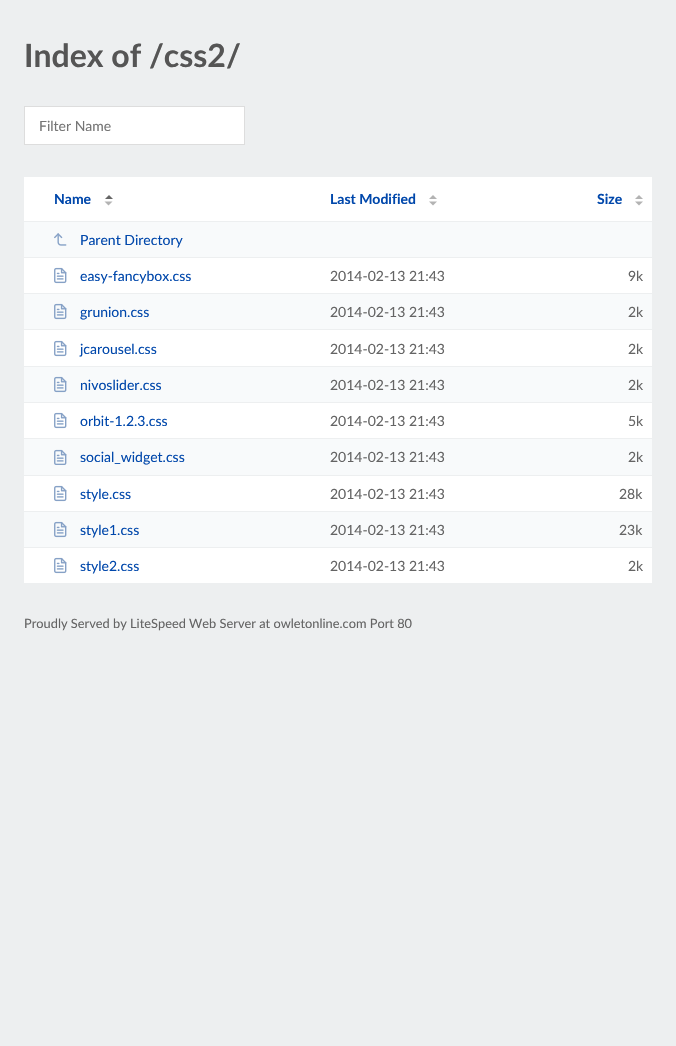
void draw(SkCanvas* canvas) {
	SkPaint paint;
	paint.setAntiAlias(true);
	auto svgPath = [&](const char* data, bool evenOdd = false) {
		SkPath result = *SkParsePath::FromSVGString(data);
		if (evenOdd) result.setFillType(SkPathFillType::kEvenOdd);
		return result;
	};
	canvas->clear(0xffedeff0);
	SkFont f1(fontMgr->matchFamilyStyle("Lato", SkFontStyle::Bold()), 32);
	f1.setSubpixel(true);
	paint.setColor(0xff555555);
	canvas->drawString("Index of /css2/", 24, 67, f1, paint);
	paint.setColor(0xffffffff);
	canvas->drawRect(SkRect::MakeXYWH(24.5, 106.5, 220, 38), paint);
	paint.setStroke(true);
	paint.setStrokeWidth(1);
	paint.setColor(0xffdddddd);
	canvas->drawRect(SkRect::MakeXYWH(24.5, 106.5, 220, 38), paint);
	SkFont f2(fontMgr->matchFamilyStyle("Lato", SkFontStyle::Normal()), 14);
	f2.setSubpixel(true);
	paint.setStroke(false);
	paint.setColor(0xff757575);
	canvas->drawString("Filter Name", 39, 131, f2, paint);
	paint.setColor(0xffffffff);
	canvas->drawRect(SkRect::MakeXYWH(24, 177, 628, 406), paint);
	SkFont f3(fontMgr->matchFamilyStyle("Lato", SkFontStyle::Bold()), 14);
	f3.setSubpixel(true);
	paint.setColor(0xff0047ab);
	canvas->drawString("Name", 54, 204, f3, paint);
	paint.setColor(0xff666666);
	canvas->drawPath(svgPath("M113 199H105L109 195Z"), paint);
	paint.setColor(0xffb3b3b3);
	canvas->drawPath(svgPath("M104.5 201.5H112.5L108.5 205.5Z"), paint);
	paint.setColor(0xff0047ab);
	canvas->drawString("Last Modified", 330, 204, f3, paint);
	paint.setColor(0xffb3b3b3);
	canvas->drawPath(svgPath("M437 199H429L433 195ZM429 201.5H437L433 205.5Z"), paint);
	paint.setColor(0xff0047ab);
	canvas->drawString("Size", 597, 204, f3, paint);
	paint.setColor(0xffb3b3b3);
	canvas->drawPath(svgPath("M643 199H635L639 195ZM635 201.5H643L639 205.5Z"), paint);
	paint.setColor(0xfff8fafb);
	canvas->drawRect(SkRect::MakeXYWH(24, 222, 628, 35), paint);
	paint.setColor(0xffedeff0);
	canvas->drawRect(SkRect::MakeXYWH(24, 221, 628, 1), paint);
	canvas->drawRect(SkRect::MakeXYWH(24, 257, 628, 1), paint);
	canvas->drawImageRect(SkImages::DeferredFromEncodedData(SkData::MakeFromFileName("img1.png")), SkRect::MakeXYWH(54, 233, 13, 13), SkSamplingOptions());
	paint.setColor(0xff0047ab);
	canvas->drawString("Parent Directory", 80, 245, f2, paint);
	canvas->drawImageRect(SkImages::DeferredFromEncodedData(SkData::MakeFromFileName("img2.png")), SkRect::MakeXYWH(54, 267, 13, 17), SkSamplingOptions());
	canvas->drawString("easy-fancybox.css", 80, 281, f2, paint);
	paint.setColor(0xff646464);
	canvas->drawString("2014-02-13 21:43", 330, 281, f2, paint);
	canvas->drawString("9k", 628, 281, f2, paint);
	paint.setColor(0xfff8fafb);
	canvas->drawRect(SkRect::MakeXYWH(24, 294, 628, 35), paint);
	paint.setColor(0xffedeff0);
	canvas->drawRect(SkRect::MakeXYWH(24, 293, 628, 1), paint);
	canvas->drawRect(SkRect::MakeXYWH(24, 329, 628, 1), paint);
	canvas->drawImageRect(SkImages::DeferredFromEncodedData(SkData::MakeFromFileName("img3.png")), SkRect::MakeXYWH(54, 303, 13, 17), SkSamplingOptions());
	paint.setColor(0xff0047ab);
	canvas->drawString("grunion.css", 80, 317, f2, paint);
	paint.setColor(0xff646464);
	canvas->drawString("2014-02-13 21:43", 330, 317, f2, paint);
	canvas->drawString("2k", 628, 317, f2, paint);
	canvas->drawImageRect(SkImages::DeferredFromEncodedData(SkData::MakeFromFileName("img2.png")), SkRect::MakeXYWH(54, 340, 13, 17), SkSamplingOptions());
	paint.setColor(0xff0047ab);
	canvas->drawString("jcarousel.css", 80, 354, f2, paint);
	paint.setColor(0xff646464);
	canvas->drawString("2014-02-13 21:43", 330, 354, f2, paint);
	canvas->drawString("2k", 628, 354, f2, paint);
	paint.setColor(0xfff8fafb);
	canvas->drawRect(SkRect::MakeXYWH(24, 367, 628, 35), paint);
	paint.setColor(0xffedeff0);
	canvas->drawRect(SkRect::MakeXYWH(24, 366, 628, 1), paint);
	canvas->drawRect(SkRect::MakeXYWH(24, 402, 628, 1), paint);
	canvas->drawImageRect(SkImages::DeferredFromEncodedData(SkData::MakeFromFileName("img3.png")), SkRect::MakeXYWH(54, 376, 13, 17), SkSamplingOptions());
	paint.setColor(0xff0047ab);
	canvas->drawString("nivoslider.css", 80, 390, f2, paint);
	paint.setColor(0xff646464);
	canvas->drawString("2014-02-13 21:43", 330, 390, f2, paint);
	canvas->drawString("2k", 628, 390, f2, paint);
	canvas->drawImageRect(SkImages::DeferredFromEncodedData(SkData::MakeFromFileName("img2.png")), SkRect::MakeXYWH(54, 412, 13, 17), SkSamplingOptions());
	paint.setColor(0xff0047ab);
	canvas->drawString("orbit-1.2.3.css", 80, 426, f2, paint);
	paint.setColor(0xff646464);
	canvas->drawString("2014-02-13 21:43", 330, 426, f2, paint);
	canvas->drawString("5k", 628, 426, f2, paint);
	paint.setColor(0xfff8fafb);
	canvas->drawRect(SkRect::MakeXYWH(24, 439, 628, 36), paint);
	paint.setColor(0xffedeff0);
	canvas->drawRect(SkRect::MakeXYWH(24, 438, 628, 1), paint);
	canvas->drawRect(SkRect::MakeXYWH(24, 475, 628, 1), paint);
	canvas->drawImageRect(SkImages::DeferredFromEncodedData(SkData::MakeFromFileName("img4.png")), SkRect::MakeXYWH(54, 449, 13, 16), SkSamplingOptions());
	paint.setColor(0xff0047ab);
	canvas->drawString("social_widget.css", 80, 462, f2, paint);
	paint.setColor(0xff646464);
	canvas->drawString("2014-02-13 21:43", 330, 462, f2, paint);
	canvas->drawString("2k", 628, 462, f2, paint);
	canvas->drawImageRect(SkImages::DeferredFromEncodedData(SkData::MakeFromFileName("img2.png")), SkRect::MakeXYWH(54, 485, 13, 17), SkSamplingOptions());
	paint.setColor(0xff0047ab);
	canvas->drawString("style.css", 80, 499, f2, paint);
	paint.setColor(0xff646464);
	canvas->drawString("2014-02-13 21:43", 330, 499, f2, paint);
	canvas->drawString("28k", 619, 499, f2, paint);
	paint.setColor(0xfff8fafb);
	canvas->drawRect(SkRect::MakeXYWH(24, 512, 628, 35), paint);
	paint.setColor(0xffedeff0);
	canvas->drawRect(SkRect::MakeXYWH(24, 511, 628, 1), paint);
	canvas->drawRect(SkRect::MakeXYWH(24, 547, 628, 1), paint);
	canvas->drawImageRect(SkImages::DeferredFromEncodedData(SkData::MakeFromFileName("img3.png")), SkRect::MakeXYWH(54, 521, 13, 17), SkSamplingOptions());
	paint.setColor(0xff0047ab);
	canvas->drawString("style1.css", 80, 535, f2, paint);
	paint.setColor(0xff646464);
	canvas->drawString("2014-02-13 21:43", 330, 535, f2, paint);
	canvas->drawString("23k", 619, 535, f2, paint);
	canvas->drawImageRect(SkImages::DeferredFromEncodedData(SkData::MakeFromFileName("img2.png")), SkRect::MakeXYWH(54, 557, 13, 17), SkSamplingOptions());
	paint.setColor(0xff0047ab);
	canvas->drawString("style2.css", 80, 571, f2, paint);
	paint.setColor(0xff646464);
	canvas->drawString("2014-02-13 21:43", 330, 571, f2, paint);
	canvas->drawString("2k", 628, 571, f2, paint);
	SkFont f4(fontMgr->matchFamilyStyle("Lato", SkFontStyle::Normal()), 12.8);
	f4.setSubpixel(true);
	canvas->drawString("Proudly Served by LiteSpeed Web Server at owletonline.com Port 80", 24, 628, f4, paint);
}
